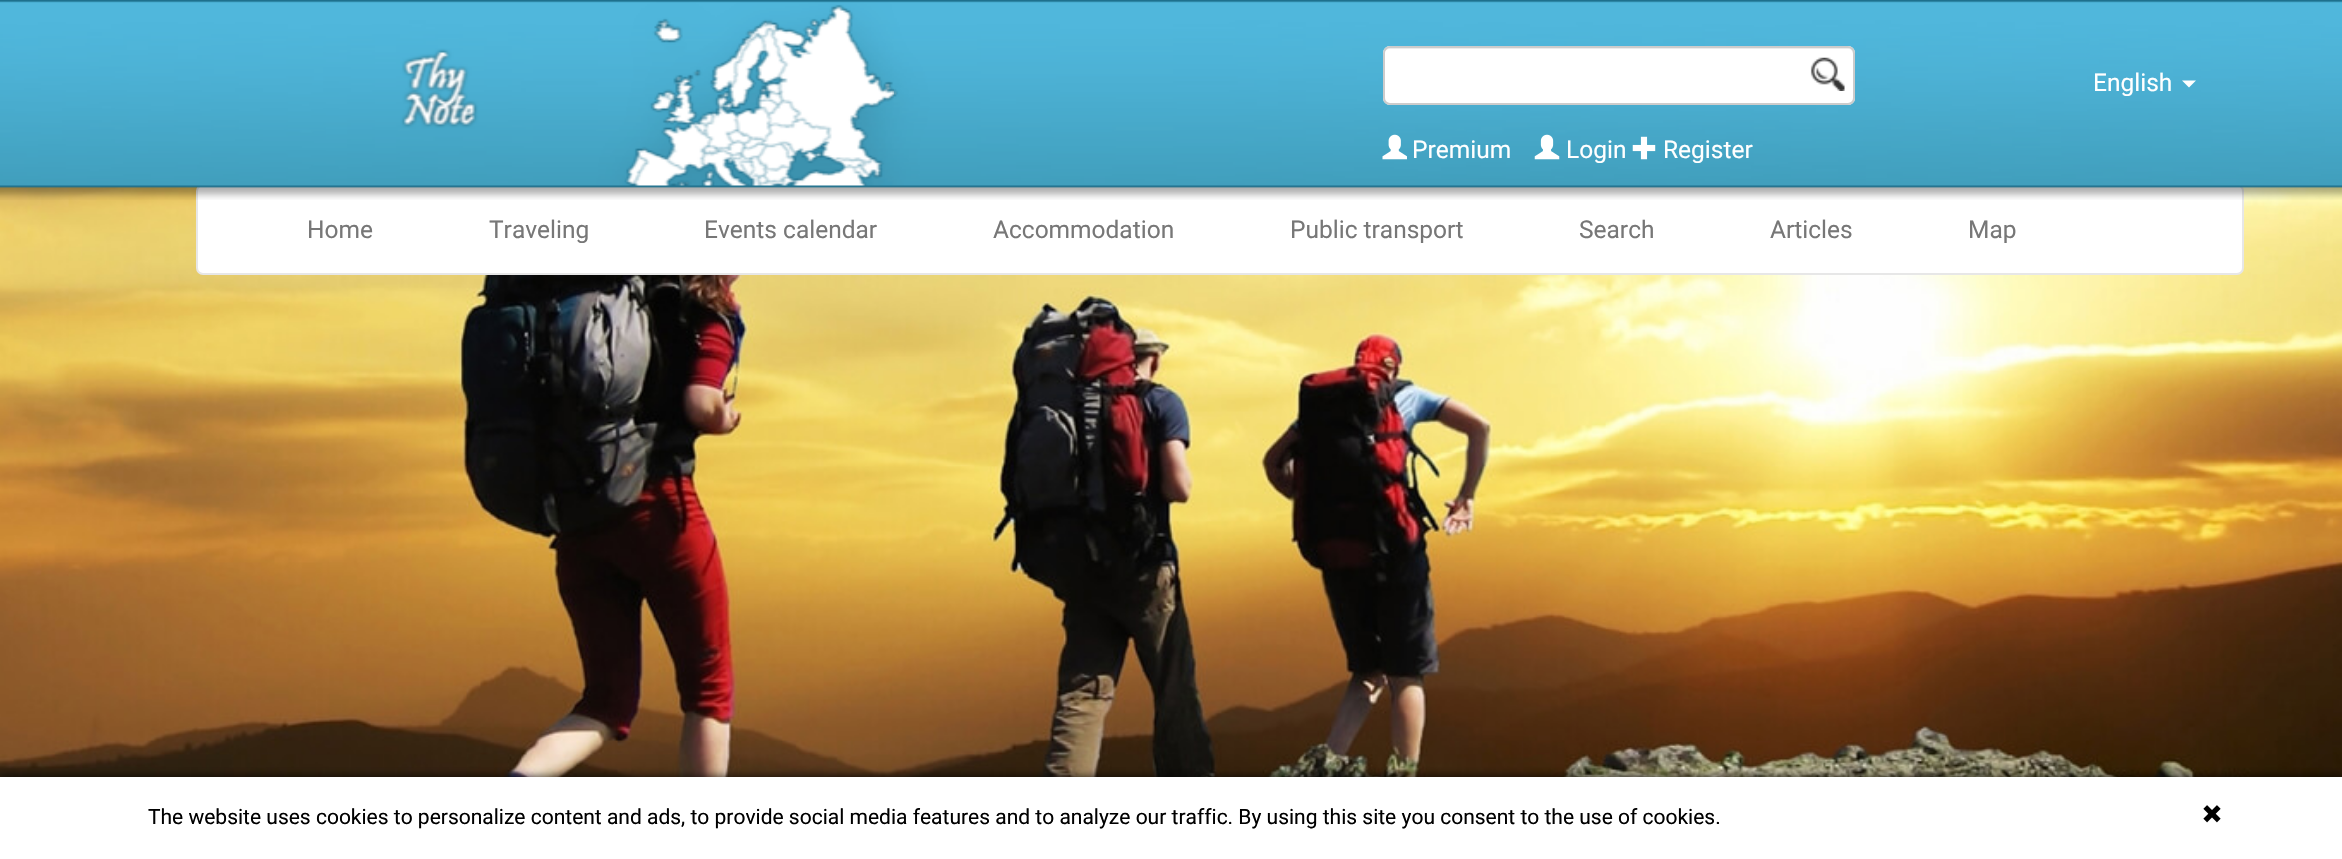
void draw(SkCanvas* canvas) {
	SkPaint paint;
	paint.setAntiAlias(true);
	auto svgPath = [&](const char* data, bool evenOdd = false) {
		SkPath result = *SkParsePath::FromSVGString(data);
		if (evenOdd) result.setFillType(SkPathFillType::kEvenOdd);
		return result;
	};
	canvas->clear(0xffffffff);
	canvas->drawImageRect(SkImages::DeferredFromEncodedData(SkData::MakeFromFileName("img6.png")), SkRect::MakeXYWH(0, 186, 2342, 591), SkSamplingOptions());
	paint.setColor(0xffffffff);
	canvas->drawRoundRect(SkRect::MakeXYWH(197, 185, 2046, 89), 6, 6, paint);
	paint.setStroke(true);
	paint.setStrokeWidth(2);
	paint.setColor(0xffe7e7e7);
	canvas->drawRoundRect(SkRect::MakeXYWH(197, 185, 2046, 89), 6, 6, paint);
	canvas->drawImageRect(SkImages::DeferredFromEncodedData(SkData::MakeFromFileName("img1.png")), SkRect::MakeXYWH(0, 0, 2342, 200), SkSamplingOptions());
	SkFont f1(fontMgr->matchFamilyStyle("Roboto", SkFontStyle::Normal()), 24.5);
	f1.setSubpixel(true);
	paint.setStroke(false);
	paint.setColor(0xffffffff);
	canvas->drawString("English", 2093, 91, f1, paint);
	canvas->drawPath(svgPath("M2182 80.5H2196L2189 87.5Z"), paint);
	canvas->drawRoundRect(SkRect::MakeXYWH(1383, 46, 472, 59), 7, 7, paint);
	paint.setColor(0xffececec);
	canvas->drawPath(svgPath("M1390 49H1848C1851 49 1853 51 1853 54V52C1853 49 1851 47 1848 47H1389C1386 47 1384 49 1384 52V54C1384 51 1387 49 1390 49Z"), paint);
	paint.setStroke(true);
	paint.setColor(0xffcccccc);
	canvas->drawRoundRect(SkRect::MakeXYWH(1384, 47, 470, 57), 6, 6, paint);
	canvas->drawImageRect(SkImages::DeferredFromEncodedData(SkData::MakeFromFileName("img2.png")), SkRect::MakeXYWH(1810, 57, 35, 34), SkSamplingOptions());
	canvas->drawImageRect(SkImages::DeferredFromEncodedData(SkData::MakeFromFileName("img3.png")), SkRect::MakeXYWH(1382, 134, 25, 26), SkSamplingOptions());
	paint.setStroke(false);
	paint.setColor(0xffffffff);
	canvas->drawString("Premium", 1412, 158, f1, paint);
	canvas->drawImageRect(SkImages::DeferredFromEncodedData(SkData::MakeFromFileName("img4.png")), SkRect::MakeXYWH(1534, 134, 26, 26), SkSamplingOptions());
	canvas->drawString("Login", 1566, 158, f1, paint);
	canvas->drawImageRect(SkImages::DeferredFromEncodedData(SkData::MakeFromFileName("img5.png")), SkRect::MakeXYWH(1632, 136, 24, 24), SkSamplingOptions());
	canvas->drawString("Register", 1663, 158, f1, paint);
	paint.setColor(0xff777777);
	canvas->drawString("Home", 307, 238, f1, paint);
	canvas->drawString("Traveling", 489, 238, f1, paint);
	canvas->drawString("Events calendar", 704, 238, f1, paint);
	canvas->drawString("Accommodation", 993, 238, f1, paint);
	canvas->drawString("Public transport", 1290, 238, f1, paint);
	canvas->drawString("Search", 1579, 238, f1, paint);
	canvas->drawString("Articles", 1770, 238, f1, paint);
	canvas->drawString("Map", 1968, 238, f1, paint);
	paint.setColor(0xcc000000);
	paint.setMaskFilter(SkMaskFilter::MakeBlur(kNormal_SkBlurStyle, 4.5));
	canvas->drawRect(SkRect::MakeXYWH(0, 777, 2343, 82), paint);
	paint.setMaskFilter(nullptr);
	paint.setColor(0xffffffff);
	canvas->drawRect(SkRect::MakeXYWH(0, 777, 2342, 82), paint);
	SkFont f2(fontMgr->matchFamilyStyle("Roboto", SkFontStyle::Normal()), 21);
	f2.setSubpixel(true);
	paint.setColor(0xff000000);
	canvas->drawString("The website uses cookies to personalize content and ads, to provide social media features and to analyze our traffic. By using this site you consent to the use of cookies.", 148, 824, f2, paint);
	canvas->drawImageRect(SkImages::DeferredFromEncodedData(SkData::MakeFromFileName("img7.png")), SkRect::MakeXYWH(2203, 805, 18, 18), SkSamplingOptions());
}
